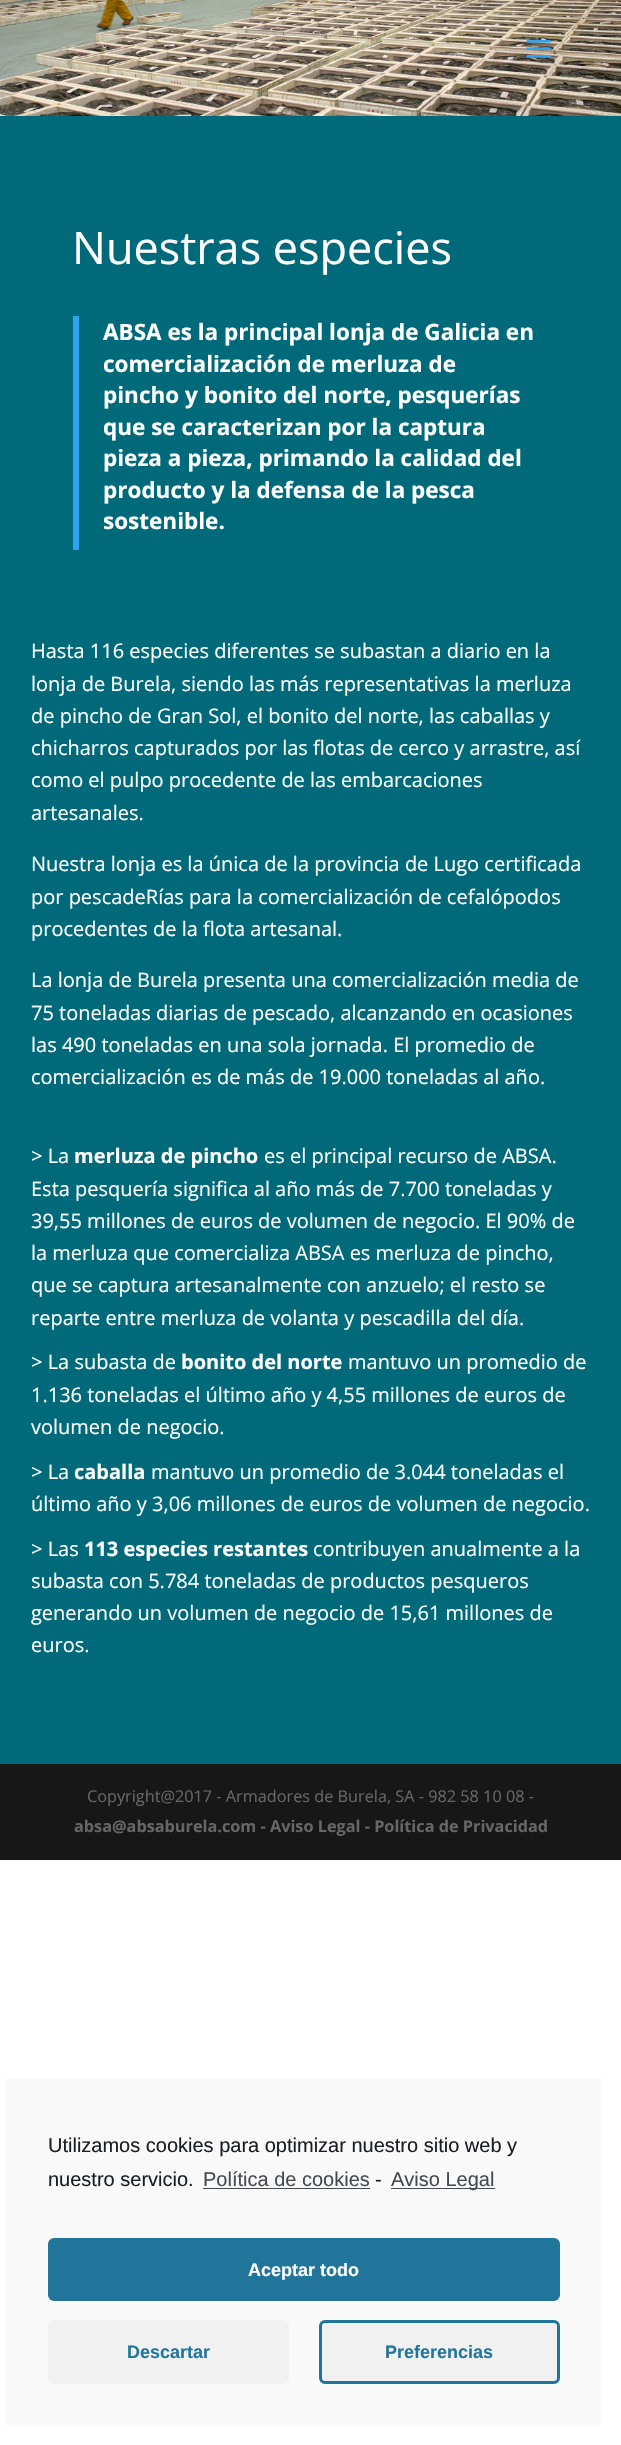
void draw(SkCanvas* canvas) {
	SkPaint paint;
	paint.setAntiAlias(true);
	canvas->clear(0xffffffff);
	canvas->drawImageRect(SkImages::DeferredFromEncodedData(SkData::MakeFromFileName("img2.png")), SkRect::MakeXYWH(0, 0, 621, 116), SkSamplingOptions());
	canvas->drawImageRect(SkImages::DeferredFromEncodedData(SkData::MakeFromFileName("img1.png")), SkRect::MakeXYWH(526, 40, 26, 18), SkSamplingOptions());
	paint.setColor(0xff006a7a);
	canvas->drawRect(SkRect::MakeXYWH(0, 116, 621, 1648), paint);
	SkFont f1(fontMgr->matchFamilyStyle("Open Sans", SkFontStyle::Normal()), 45);
	f1.setSubpixel(true);
	paint.setColor(0xffffffff);
	canvas->drawString("Nuestras especies", 72, 264, f1, paint);
	paint.setColor(0xff2ea3f2);
	canvas->drawRect(SkRect::MakeXYWH(73, 316, 6, 234), paint);
	SkFont f2(fontMgr->matchFamilyStyle("Open Sans", SkFontStyle::Bold()), 22.5);
	f2.setSubpixel(true);
	paint.setColor(0xffffffff);
	canvas->drawString("ABSA es la principal lonja de Galicia en", 103, 340, f2, paint);
	canvas->drawString("comercialización de merluza de", 103, 372, f2, paint);
	canvas->drawString("pincho y bonito del norte, pesquerías", 103, 403, f2, paint);
	canvas->drawString("que se caracterizan por la captura", 103, 435, f2, paint);
	canvas->drawString("pieza a pieza, primando la calidad del", 103, 466, f2, paint);
	canvas->drawString("producto y la defensa de la pesca", 103, 498, f2, paint);
	canvas->drawString("sostenible.", 103, 529, f2, paint);
	SkFont f3(fontMgr->matchFamilyStyle("Open Sans", SkFontStyle::Normal()), 20);
	f3.setSubpixel(true);
	canvas->drawString("Hasta 116 especies diferentes se subastan a diario en la", 31, 658, f3, paint);
	canvas->drawString("lonja de Burela, siendo las más representativas la merluza", 31, 691, f3, paint);
	canvas->drawString("de pincho de Gran Sol, el bonito del norte, las caballas y", 31, 723, f3, paint);
	canvas->drawString("chicharros capturados por las flotas de cerco y arrastre, así", 31, 755, f3, paint);
	canvas->drawString("como el pulpo procedente de las embarcaciones", 31, 787, f3, paint);
	canvas->drawString("artesanales.", 31, 820, f3, paint);
	canvas->drawString("Nuestra lonja es la única de la provincia de Lugo certificada", 31, 871, f3, paint);
	canvas->drawString("por pescadeRías para la comercialización de cefalópodos", 31, 904, f3, paint);
	canvas->drawString("procedentes de la flota artesanal.", 31, 936, f3, paint);
	canvas->drawString("La lonja de Burela presenta una comercialización media de", 31, 987, f3, paint);
	canvas->drawString("75 toneladas diarias de pescado, alcanzando en ocasiones", 31, 1020, f3, paint);
	canvas->drawString("las 490 toneladas en una sola jornada. El promedio de", 31, 1052, f3, paint);
	canvas->drawString("comercialización es de más de 19.000 toneladas al año.", 31, 1084, f3, paint);
	canvas->drawString("> La", 31, 1163, f3, paint);
	SkFont f4(fontMgr->matchFamilyStyle("Open Sans", SkFontStyle::Bold()), 20);
	f4.setSubpixel(true);
	canvas->drawString("merluza de pincho", 74, 1163, f4, paint);
	canvas->drawString("es el principal recurso de ABSA.", 264, 1163, f3, paint);
	canvas->drawString("Esta pesquería significa al año más de 7.700 toneladas y", 31, 1196, f3, paint);
	canvas->drawString("39,55 millones de euros de volumen de negocio. El 90% de", 31, 1228, f3, paint);
	canvas->drawString("la merluza que comercializa ABSA es merluza de pincho,", 31, 1260, f3, paint);
	canvas->drawString("que se captura artesanalmente con anzuelo; el resto se", 31, 1292, f3, paint);
	canvas->drawString("reparte entre merluza de volanta y pescadilla del día.", 31, 1325, f3, paint);
	canvas->drawString("> La subasta de", 31, 1369, f3, paint);
	canvas->drawString("bonito del norte", 181, 1369, f4, paint);
	canvas->drawString("mantuvo un promedio de", 348, 1369, f3, paint);
	canvas->drawString("1.136 toneladas el último año y 4,55 millones de euros de", 31, 1402, f3, paint);
	canvas->drawString("volumen de negocio.", 31, 1434, f3, paint);
	canvas->drawString("> La", 31, 1479, f3, paint);
	canvas->drawString("caballa", 74, 1479, f4, paint);
	canvas->drawString("mantuvo un promedio de 3.044 toneladas el", 151, 1479, f3, paint);
	canvas->drawString("último año y 3,06 millones de euros de volumen de negocio.", 31, 1511, f3, paint);
	canvas->drawString("> Las", 31, 1556, f3, paint);
	canvas->drawString("113 especies restantes", 84, 1556, f4, paint);
	canvas->drawString("contribuyen anualmente a la", 313, 1556, f3, paint);
	canvas->drawString("subasta con 5.784 toneladas de productos pesqueros", 31, 1588, f3, paint);
	canvas->drawString("generando un volumen de negocio de 15,61 millones de", 31, 1620, f3, paint);
	canvas->drawString("euros.", 31, 1652, f3, paint);
	paint.setColor(0xff171717);
	canvas->drawRect(SkRect::MakeXYWH(0, 1764, 621, 96), paint);
	SkFont f5(fontMgr->matchFamilyStyle("Open Sans", SkFontStyle::Normal()), 16.25);
	f5.setSubpixel(true);
	paint.setColor(0xff666666);
	canvas->drawString("Copyright@2017 - Armadores de Burela, SA - 982 58 10 08 -", 87, 1802, f5, paint);
	SkFont f6(fontMgr->matchFamilyStyle("Open Sans", SkFontStyle::Bold()), 16.25);
	f6.setSubpixel(true);
	canvas->drawString("absa@absaburela.com - Aviso Legal - Política de Privacidad", 74, 1832, f6, paint);
	paint.setColor(0xfff9f9f9);
	canvas->drawRect(SkRect::MakeXYWH(6, 2078, 595, 347), paint);
	SkFont f7(fontMgr->matchFamilyStyle("Liberation Sans", SkFontStyle::Normal()), 20);
	f7.setSubpixel(true);
	paint.setColor(0xff191e23);
	canvas->drawString("Utilizamos cookies para optimizar nuestro sitio web y", 48, 2152, f7, paint);
	canvas->drawString("nuestro servicio.", 48, 2186, f7, paint);
	paint.setColor(0xff464a4e);
	canvas->drawString("Política de cookies", 203, 2186, f7, paint);
	canvas->drawRect(SkRect::MakeXYWH(203, 2188, 167, 1), paint);
	paint.setColor(0xff191e23);
	canvas->drawString("-", 375, 2186, f7, paint);
	paint.setColor(0xff464a4e);
	canvas->drawRect(SkRect::MakeXYWH(391, 2188, 104, 1), paint);
	canvas->drawString("Aviso Legal", 391, 2186, f7, paint);
	paint.setColor(0xff21759b);
	canvas->drawRoundRect(SkRect::MakeXYWH(49.5, 2239.5, 509, 60), 4.5, 4.5, paint);
	paint.setStroke(true);
	paint.setStrokeWidth(3);
	canvas->drawRoundRect(SkRect::MakeXYWH(49.5, 2239.5, 509, 60), 4.5, 4.5, paint);
	SkFont f8(fontMgr->matchFamilyStyle("Liberation Sans", SkFontStyle::Bold()), 18);
	f8.setSubpixel(true);
	paint.setStroke(false);
	paint.setColor(0xffffffff);
	canvas->drawString("Aceptar todo", 248, 2276, f8, paint);
	paint.setColor(0xfff1f1f1);
	canvas->drawRoundRect(SkRect::MakeXYWH(48, 2320, 241, 64), 6, 6, paint);
	paint.setColor(0xff21759b);
	canvas->drawString("Descartar", 127, 2358, f8, paint);
	paint.setColor(0xfff1f1f1);
	canvas->drawRoundRect(SkRect::MakeXYWH(320.5, 2321.5, 238, 61), 4.5, 4.5, paint);
	paint.setStroke(true);
	paint.setColor(0xff21759b);
	canvas->drawRoundRect(SkRect::MakeXYWH(320.5, 2321.5, 238, 61), 4.5, 4.5, paint);
	paint.setStroke(false);
	canvas->drawString("Preferencias", 385, 2358, f8, paint);
}
